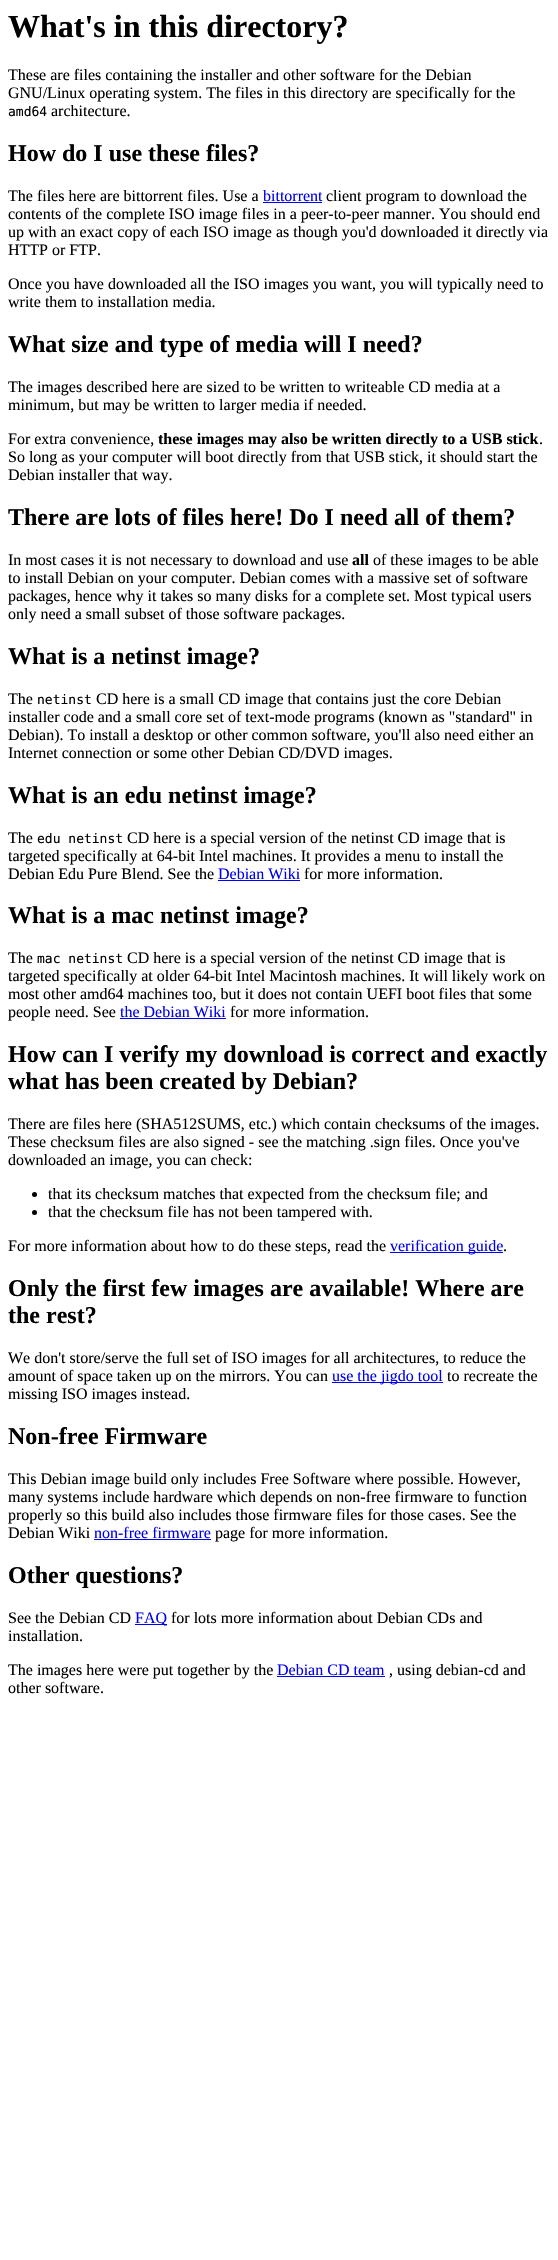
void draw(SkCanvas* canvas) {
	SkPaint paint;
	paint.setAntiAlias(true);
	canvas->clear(0xffffffff);
	SkFont f1(fontMgr->matchFamilyStyle("Liberation Serif", SkFontStyle::Bold()), 32);
	f1.setSubpixel(true);
	paint.setColor(0xff000000);
	canvas->drawString("What's in this directory?", 8, 37, f1, paint);
	SkFont f2(fontMgr->matchFamilyStyle("Liberation Serif", SkFontStyle::Normal()), 16);
	f2.setSubpixel(true);
	canvas->drawString("These are files containing the installer and other software for the Debian", 8, 80, f2, paint);
	canvas->drawString("GNU/Linux operating system. The files in this directory are specifically for the", 8, 98, f2, paint);
	SkFont f3(fontMgr->matchFamilyStyle("DejaVu Sans Mono", SkFontStyle::Normal()), 13);
	f3.setSubpixel(true);
	canvas->drawString("amd64", 8, 116, f3, paint);
	canvas->drawString("architecture.", 51, 116, f2, paint);
	SkFont f4(fontMgr->matchFamilyStyle("Liberation Serif", SkFontStyle::Bold()), 24);
	f4.setSubpixel(true);
	canvas->drawString("How do I use these files?", 8, 161, f4, paint);
	canvas->drawString("The files here are bittorrent files. Use a", 8, 201, f2, paint);
	paint.setColor(0xff0000ee);
	canvas->drawString("bittorrent", 263, 201, f2, paint);
	canvas->drawRect(SkRect::MakeXYWH(263, 202, 59, 1), paint);
	paint.setColor(0xff000000);
	canvas->drawString("client program to download the", 326, 201, f2, paint);
	canvas->drawString("contents of the complete ISO image files in a peer-to-peer manner. You should end", 8, 219, f2, paint);
	canvas->drawString("up with an exact copy of each ISO image as though you'd downloaded it directly via", 8, 237, f2, paint);
	canvas->drawString("HTTP or FTP.", 8, 255, f2, paint);
	canvas->drawString("Once you have downloaded all the ISO images you want, you will typically need to", 8, 289, f2, paint);
	canvas->drawString("write them to installation media.", 8, 307, f2, paint);
	canvas->drawString("What size and type of media will I need?", 8, 352, f4, paint);
	canvas->drawString("The images described here are sized to be written to writeable CD media at a", 8, 392, f2, paint);
	canvas->drawString("minimum, but may be written to larger media if needed.", 8, 410, f2, paint);
	canvas->drawString("For extra convenience,", 8, 444, f2, paint);
	SkFont f5(fontMgr->matchFamilyStyle("Liberation Serif", SkFontStyle::Bold()), 16);
	f5.setSubpixel(true);
	canvas->drawString("these images may also be written directly to a USB stick", 158, 444, f5, paint);
	canvas->drawString(".", 539, 444, f2, paint);
	canvas->drawString("So long as your computer will boot directly from that USB stick, it should start the", 8, 462, f2, paint);
	canvas->drawString("Debian installer that way.", 8, 480, f2, paint);
	canvas->drawString("There are lots of files here! Do I need all of them?", 8, 525, f4, paint);
	canvas->drawString("In most cases it is not necessary to download and use", 8, 565, f2, paint);
	canvas->drawString("all", 352, 565, f5, paint);
	canvas->drawString("of these images to be able", 373, 565, f2, paint);
	canvas->drawString("to install Debian on your computer. Debian comes with a massive set of software", 8, 583, f2, paint);
	canvas->drawString("packages, hence why it takes so many disks for a complete set. Most typical users", 8, 601, f2, paint);
	canvas->drawString("only need a small subset of those software packages.", 8, 619, f2, paint);
	canvas->drawString("What is a netinst image?", 8, 664, f4, paint);
	canvas->drawString("The", 8, 704, f2, paint);
	canvas->drawString("netinst", 37, 704, f3, paint);
	canvas->drawString("CD here is a small CD image that contains just the core Debian", 96, 704, f2, paint);
	canvas->drawString("installer code and a small core set of text-mode programs (known as \"standard\" in", 8, 722, f2, paint);
	canvas->drawString("Debian). To install a desktop or other common software, you'll also need either an", 8, 740, f2, paint);
	canvas->drawString("Internet connection or some other Debian CD/DVD images.", 8, 758, f2, paint);
	canvas->drawString("What is an edu netinst image?", 8, 803, f4, paint);
	canvas->drawString("The", 8, 843, f2, paint);
	canvas->drawString("edu netinst", 37, 843, f3, paint);
	canvas->drawString("CD here is a special version of the netinst CD image that is", 127, 843, f2, paint);
	canvas->drawString("targeted specifically at 64-bit Intel machines. It provides a menu to install the", 8, 861, f2, paint);
	canvas->drawString("Debian Edu Pure Blend. See the", 8, 879, f2, paint);
	paint.setColor(0xff0000ee);
	canvas->drawString("Debian Wiki", 218, 879, f2, paint);
	canvas->drawRect(SkRect::MakeXYWH(218, 880, 82, 1), paint);
	paint.setColor(0xff000000);
	canvas->drawString("for more information.", 304, 879, f2, paint);
	canvas->drawString("What is a mac netinst image?", 8, 923, f4, paint);
	canvas->drawString("The", 8, 963, f2, paint);
	canvas->drawString("mac netinst", 37, 963, f3, paint);
	canvas->drawString("CD here is a special version of the netinst CD image that is", 127, 963, f2, paint);
	canvas->drawString("targeted specifically at older 64-bit Intel Macintosh machines. It will likely work on", 8, 981, f2, paint);
	canvas->drawString("most other amd64 machines too, but it does not contain UEFI boot files that some", 8, 999, f2, paint);
	canvas->drawString("people need. See", 8, 1017, f2, paint);
	paint.setColor(0xff0000ee);
	canvas->drawString("the Debian Wiki", 120, 1017, f2, paint);
	canvas->drawRect(SkRect::MakeXYWH(120, 1018, 106, 1), paint);
	paint.setColor(0xff000000);
	canvas->drawString("for more information.", 230, 1017, f2, paint);
	canvas->drawString("How can I verify my download is correct and exactly", 8, 1062, f4, paint);
	canvas->drawString("what has been created by Debian?", 8, 1089, f4, paint);
	canvas->drawString("There are files here (SHA512SUMS, etc.) which contain checksums of the images.", 8, 1129, f2, paint);
	canvas->drawString("These checksum files are also signed - see the matching .sign files. Once you've", 8, 1147, f2, paint);
	canvas->drawString("downloaded an image, you can check:", 8, 1165, f2, paint);
	canvas->drawCircle(34.5, 1194.5, 2.5, paint);
	canvas->drawString("that its checksum matches that expected from the checksum file; and", 48, 1199, f2, paint);
	canvas->drawCircle(34.5, 1212.5, 2.5, paint);
	canvas->drawString("that the checksum file has not been tampered with.", 48, 1217, f2, paint);
	canvas->drawString("For more information about how to do these steps, read the", 8, 1251, f2, paint);
	paint.setColor(0xff0000ee);
	canvas->drawRect(SkRect::MakeXYWH(390, 1252, 113, 1), paint);
	canvas->drawString("verification guide", 390, 1251, f2, paint);
	paint.setColor(0xff000000);
	canvas->drawString(".", 503, 1251, f2, paint);
	canvas->drawString("Only the first few images are available! Where are", 8, 1296, f4, paint);
	canvas->drawString("the rest?", 8, 1323, f4, paint);
	canvas->drawString("We don't store/serve the full set of ISO images for all architectures, to reduce the", 8, 1363, f2, paint);
	canvas->drawString("amount of space taken up on the mirrors. You can", 8, 1381, f2, paint);
	paint.setColor(0xff0000ee);
	canvas->drawRect(SkRect::MakeXYWH(332, 1382, 111, 1), paint);
	canvas->drawString("use the jigdo tool", 332, 1381, f2, paint);
	paint.setColor(0xff000000);
	canvas->drawString("to recreate the", 447, 1381, f2, paint);
	canvas->drawString("missing ISO images instead.", 8, 1399, f2, paint);
	canvas->drawString("Non-free Firmware", 8, 1444, f4, paint);
	canvas->drawString("This Debian image build only includes Free Software where possible. However,", 8, 1484, f2, paint);
	canvas->drawString("many systems include hardware which depends on non-free firmware to function", 8, 1502, f2, paint);
	canvas->drawString("properly so this build also includes those firmware files for those cases. See the", 8, 1520, f2, paint);
	canvas->drawString("Debian Wiki", 8, 1538, f2, paint);
	paint.setColor(0xff0000ee);
	canvas->drawString("non-free firmware", 94, 1538, f2, paint);
	canvas->drawRect(SkRect::MakeXYWH(94, 1539, 117, 1), paint);
	paint.setColor(0xff000000);
	canvas->drawString("page for more information.", 215, 1538, f2, paint);
	canvas->drawString("Other questions?", 8, 1583, f4, paint);
	canvas->drawString("See the Debian CD", 8, 1623, f2, paint);
	paint.setColor(0xff0000ee);
	canvas->drawRect(SkRect::MakeXYWH(135, 1624, 32, 1), paint);
	canvas->drawString("FAQ", 135, 1623, f2, paint);
	paint.setColor(0xff000000);
	canvas->drawString("for lots more information about Debian CDs and", 171, 1623, f2, paint);
	canvas->drawString("installation.", 8, 1641, f2, paint);
	canvas->drawString("The images here were put together by the", 8, 1675, f2, paint);
	paint.setColor(0xff0000ee);
	canvas->drawString("Debian CD team", 277, 1675, f2, paint);
	canvas->drawRect(SkRect::MakeXYWH(277, 1676, 108, 1), paint);
	paint.setColor(0xff000000);
	canvas->drawString(", using debian-cd and", 389, 1675, f2, paint);
	canvas->drawString("other software.", 8, 1693, f2, paint);
}
